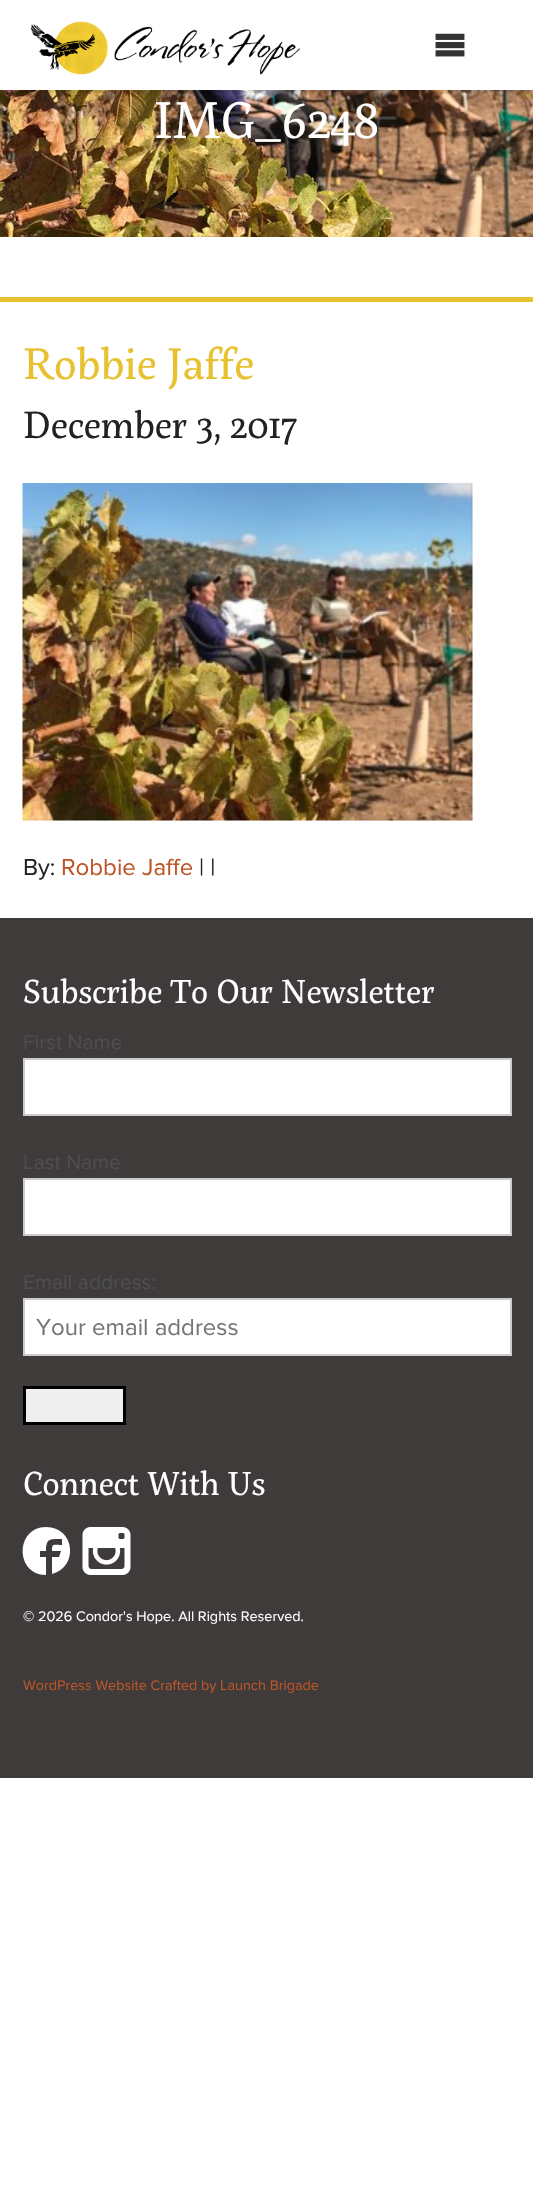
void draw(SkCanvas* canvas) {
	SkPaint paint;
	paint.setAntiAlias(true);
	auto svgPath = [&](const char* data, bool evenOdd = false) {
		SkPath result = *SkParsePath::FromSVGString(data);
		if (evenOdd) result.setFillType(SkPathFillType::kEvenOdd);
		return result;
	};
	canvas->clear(0xffffffff);
	canvas->drawImageRect(SkImages::DeferredFromEncodedData(SkData::MakeFromFileName("img3.png")), SkRect::MakeXYWH(0, 90, 533, 147), SkSamplingOptions());
	paint.setColor(0x1a000000);
	paint.setMaskFilter(SkMaskFilter::MakeBlur(kNormal_SkBlurStyle, 1));
	canvas->drawRect(SkRect::MakeXYWH(0, 3, 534, 90), paint);
	paint.setMaskFilter(nullptr);
	paint.setColor(0xffffffff);
	canvas->drawRect(SkRect::MakeXYWH(0, 2, 533, 88), paint);
	canvas->drawImageRect(SkImages::DeferredFromEncodedData(SkData::MakeFromFileName("img1.png")), SkRect::MakeXYWH(30, 21, 270, 54), SkSamplingOptions());
	canvas->drawImageRect(SkImages::DeferredFromEncodedData(SkData::MakeFromFileName("img2.png")), SkRect::MakeXYWH(435, 33, 30, 24), SkSamplingOptions());
	SkFont f1(fontMgr->matchFamilyStyle("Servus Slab", SkFontStyle::Normal()), 51);
	f1.setSubpixel(true);
	canvas->drawString("IMG_6248", 154, 138, f1, paint);
	paint.setColor(0xffe8c130);
	canvas->drawRect(SkRect::MakeXYWH(0, 297, 533, 5), paint);
	SkFont f2(fontMgr->matchFamilyStyle("Servus Slab", SkFontStyle::Normal()), 43.5);
	f2.setSubpixel(true);
	canvas->drawString("Robbie Jaffe", 23, 379, f2, paint);
	SkFont f3(fontMgr->matchFamilyStyle("Servus Slab", SkFontStyle::Normal()), 37.5);
	f3.setSubpixel(true);
	paint.setColor(0xff222222);
	canvas->drawString("December 3, 2017", 23, 438, f3, paint);
	canvas->drawImageRect(SkImages::DeferredFromEncodedData(SkData::MakeFromFileName("img4.png")), SkRect::MakeXYWH(22, 483, 451, 338), SkSamplingOptions());
	SkFont f4(fontMgr->matchFamilyStyle("Proxima Nova", SkFontStyle::Normal()), 24);
	f4.setSubpixel(true);
	canvas->drawString("By:", 23, 875, f4, paint);
	paint.setColor(0xffbe5527);
	canvas->drawString("Robbie Jaffe", 61, 875, f4, paint);
	paint.setColor(0xff222222);
	canvas->drawString("| |", 199, 875, f4, paint);
	paint.setColor(0xff3f3b3b);
	canvas->drawRect(SkRect::MakeXYWH(0, 918, 533, 860), paint);
	SkFont f5(fontMgr->matchFamilyStyle("Servus Slab", SkFontStyle::Normal()), 33);
	f5.setSubpixel(true);
	paint.setColor(0xffffffff);
	canvas->drawString("Subscribe To Our Newsletter", 23, 1003, f5, paint);
	SkFont f6(fontMgr->matchFamilyStyle("Proxima Nova", SkFontStyle::Normal()), 21);
	f6.setSubpixel(true);
	paint.setColor(0xff4d4d4d);
	canvas->drawString("First Name", 23, 1049, f6, paint);
	paint.setColor(0xffffffff);
	canvas->drawRect(SkRect::MakeXYWH(24, 1059, 487, 56), paint);
	paint.setStroke(true);
	paint.setStrokeWidth(2);
	paint.setColor(0xffcccccc);
	canvas->drawRect(SkRect::MakeXYWH(24, 1059, 487, 56), paint);
	paint.setStroke(false);
	paint.setColor(0xff4d4d4d);
	canvas->drawString("Last Name", 23, 1169, f6, paint);
	paint.setColor(0xffffffff);
	canvas->drawRect(SkRect::MakeXYWH(24, 1179, 487, 56), paint);
	paint.setStroke(true);
	paint.setColor(0xffcccccc);
	canvas->drawRect(SkRect::MakeXYWH(24, 1179, 487, 56), paint);
	paint.setStroke(false);
	paint.setColor(0xff4d4d4d);
	canvas->drawString("Email address:", 23, 1289, f6, paint);
	paint.setColor(0xffffffff);
	canvas->drawRect(SkRect::MakeXYWH(24, 1299, 487, 56), paint);
	paint.setStroke(true);
	paint.setColor(0xffcccccc);
	canvas->drawRect(SkRect::MakeXYWH(24, 1299, 487, 56), paint);
	paint.setStroke(false);
	paint.setColor(0xff757575);
	canvas->drawString("Your email address", 36, 1335, f4, paint);
	paint.setColor(0xffefefef);
	canvas->drawRect(SkRect::MakeXYWH(24.5, 1387.5, 100, 36), paint);
	paint.setStroke(true);
	paint.setStrokeWidth(3);
	paint.setColor(0xff000000);
	canvas->drawRect(SkRect::MakeXYWH(24.5, 1387.5, 100, 36), paint);
	paint.setStroke(false);
	paint.setColor(0xffffffff);
	canvas->drawString("Connect With Us", 23, 1495, f5, paint);
	canvas->drawPath(svgPath("M46 1527C15 1527 15 1575 46 1575V1557H40V1551H46C46 1538 50 1539 62 1539V1545C53 1545 52 1543 52 1551H61L59 1557H52V1574C79 1567 75 1527 46 1527Z"), paint);
	canvas->drawImageRect(SkImages::DeferredFromEncodedData(SkData::MakeFromFileName("img5.png")), SkRect::MakeXYWH(82, 1527, 49, 48), SkSamplingOptions());
	SkFont f7(fontMgr->matchFamilyStyle("Proxima Nova", SkFontStyle::Normal()), 14.4);
	f7.setSubpixel(true);
	canvas->drawString("© 2026 Condor's Hope. All Rights Reserved.", 23, 1621, f7, paint);
	paint.setColor(0xffbe5527);
	canvas->drawString("WordPress Website Crafted by Launch Brigade", 23, 1690, f7, paint);
}
